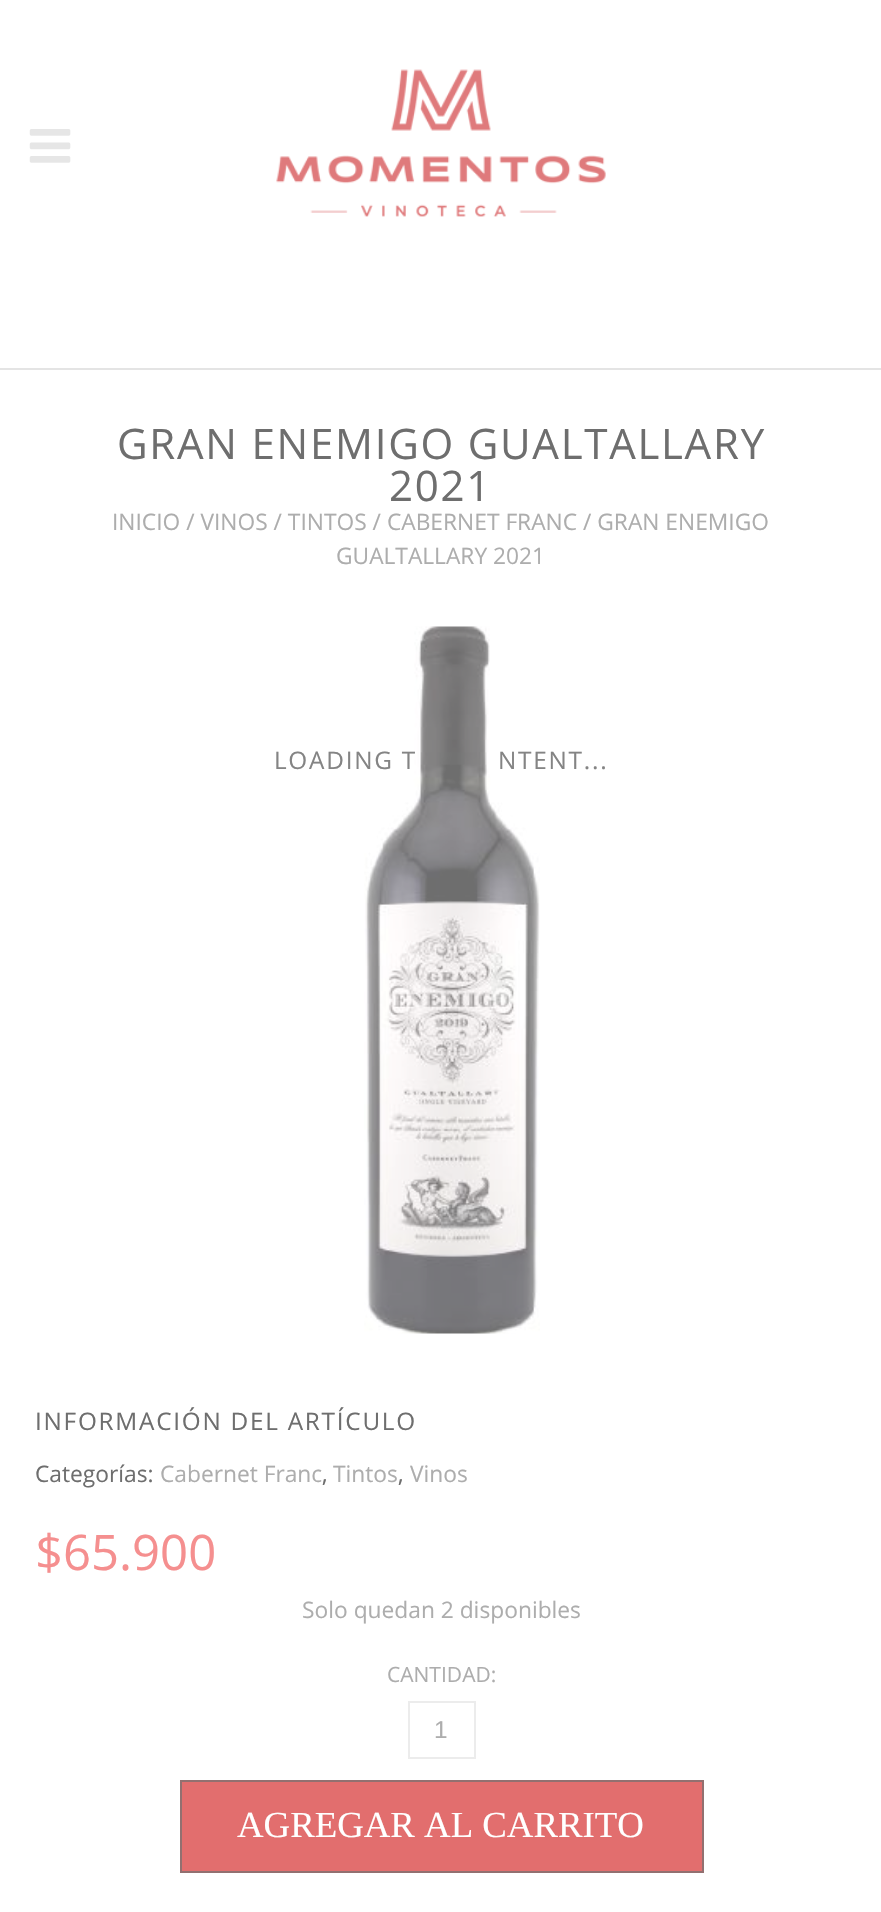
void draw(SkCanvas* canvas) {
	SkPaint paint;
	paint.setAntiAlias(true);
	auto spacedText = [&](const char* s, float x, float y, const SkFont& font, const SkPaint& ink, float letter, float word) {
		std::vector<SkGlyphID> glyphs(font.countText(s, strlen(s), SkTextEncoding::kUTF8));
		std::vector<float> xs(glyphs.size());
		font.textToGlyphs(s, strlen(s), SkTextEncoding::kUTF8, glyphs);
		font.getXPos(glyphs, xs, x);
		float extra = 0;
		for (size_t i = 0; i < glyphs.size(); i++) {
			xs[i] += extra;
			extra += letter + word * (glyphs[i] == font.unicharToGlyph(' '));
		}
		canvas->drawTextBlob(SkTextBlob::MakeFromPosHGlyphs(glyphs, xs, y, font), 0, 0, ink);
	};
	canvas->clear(0xffffffff);
	paint.setColor(0xffe4e4e4);
	canvas->drawRect(SkRect::MakeXYWH(0, 368, 881, 2), paint);
	canvas->drawImageRect(SkImages::DeferredFromEncodedData(SkData::MakeFromFileName("img1.png")), SkRect::MakeXYWH(29, 129, 42, 34), SkSamplingOptions());
	canvas->drawImageRect(SkImages::DeferredFromEncodedData(SkData::MakeFromFileName("img2.png")), SkRect::MakeXYWH(276, 69, 330, 148), SkSamplingOptions());
	SkFont f1(fontMgr->matchFamilyStyle("Open Sans", SkFontStyle::Normal()), 42);
	f1.setSubpixel(true);
	paint.setColor(0xff6e6e6e);
	spacedText("GRAN ENEMIGO GUALTALLARY", 117, 459, f1, paint, 1.75, 0);
	spacedText("2021", 389, 501, f1, paint, 1.75, 0);
	SkFont f2(fontMgr->matchFamilyStyle("Open Sans", SkFontStyle::Normal()), 22.75);
	f2.setSubpixel(true);
	paint.setColor(0xffadadad);
	canvas->drawString("INICIO / VINOS / TINTOS / CABERNET FRANC / GRAN ENEMIGO", 112, 530, f2, paint);
	canvas->drawString("GUALTALLARY 2021", 336, 564, f2, paint);
	canvas->drawImageRect(SkImages::DeferredFromEncodedData(SkData::MakeFromFileName("img3.png")), SkRect::MakeXYWH(364, 626, 176, 708), SkSamplingOptions());
	SkFont f3(fontMgr->matchFamilyStyle("Open Sans", SkFontStyle::Normal()), 24.3);
	f3.setSubpixel(true);
	paint.setColor(0xff6e6e6e);
	spacedText("INFORMACIÓN DEL ARTÍCULO", 35, 1430, f3, paint, 1.75, 0);
	canvas->drawString("Categorías:", 35, 1482, f2, paint);
	paint.setColor(0xffadadad);
	canvas->drawString("Cabernet Franc", 160, 1482, f2, paint);
	paint.setColor(0xff6e6e6e);
	canvas->drawString(",", 322, 1482, f2, paint);
	paint.setColor(0xffadadad);
	canvas->drawString("Tintos", 333, 1482, f2, paint);
	paint.setColor(0xff6e6e6e);
	canvas->drawString(",", 398, 1482, f2, paint);
	paint.setColor(0xffadadad);
	canvas->drawString("Vinos", 410, 1482, f2, paint);
	SkFont f4(fontMgr->matchFamilyStyle("Open Sans", SkFontStyle::Normal()), 49);
	f4.setSubpixel(true);
	paint.setColor(0xfff58f8f);
	canvas->drawString("$65.900", 35, 1570, f4, paint);
	paint.setColor(0xffadadad);
	canvas->drawString("Solo quedan 2 disponibles", 302, 1618, f2, paint);
	SkFont f5(fontMgr->matchFamilyStyle("Open Sans", SkFontStyle::Normal()), 21);
	f5.setSubpixel(true);
	canvas->drawString("CANTIDAD:", 387, 1682, f5, paint);
	paint.setStroke(true);
	paint.setStrokeWidth(2);
	paint.setColor(0xffececec);
	canvas->drawRect(SkRect::MakeXYWH(409, 1702, 66, 56), paint);
	SkFont f6(fontMgr->matchFamilyStyle("Liberation Sans", SkFontStyle::Normal()), 24.3);
	f6.setSubpixel(true);
	paint.setStroke(false);
	paint.setColor(0xffadadad);
	canvas->drawString("1", 434, 1738, f6, paint);
	paint.setColor(0xffe26e6e);
	canvas->drawRect(SkRect::MakeXYWH(181, 1781, 522, 91), paint);
	paint.setStroke(true);
	paint.setColor(0xff927070);
	canvas->drawRect(SkRect::MakeXYWH(181, 1781, 522, 91), paint);
	SkFont f7(fontMgr->matchFamilyStyle("Liberation Serif", SkFontStyle::Normal()), 36.8);
	f7.setSubpixel(true);
	paint.setStroke(false);
	paint.setColor(0xffffffff);
	canvas->drawString("AGREGAR AL CARRITO", 237, 1837, f7, paint);
	paint.setColor(0xff848484);
	spacedText("LOADING T", 274, 769, f3, paint, 1.75, 0);
	spacedText("NTENT...", 498, 769, f3, paint, 1.75, 0);
}
